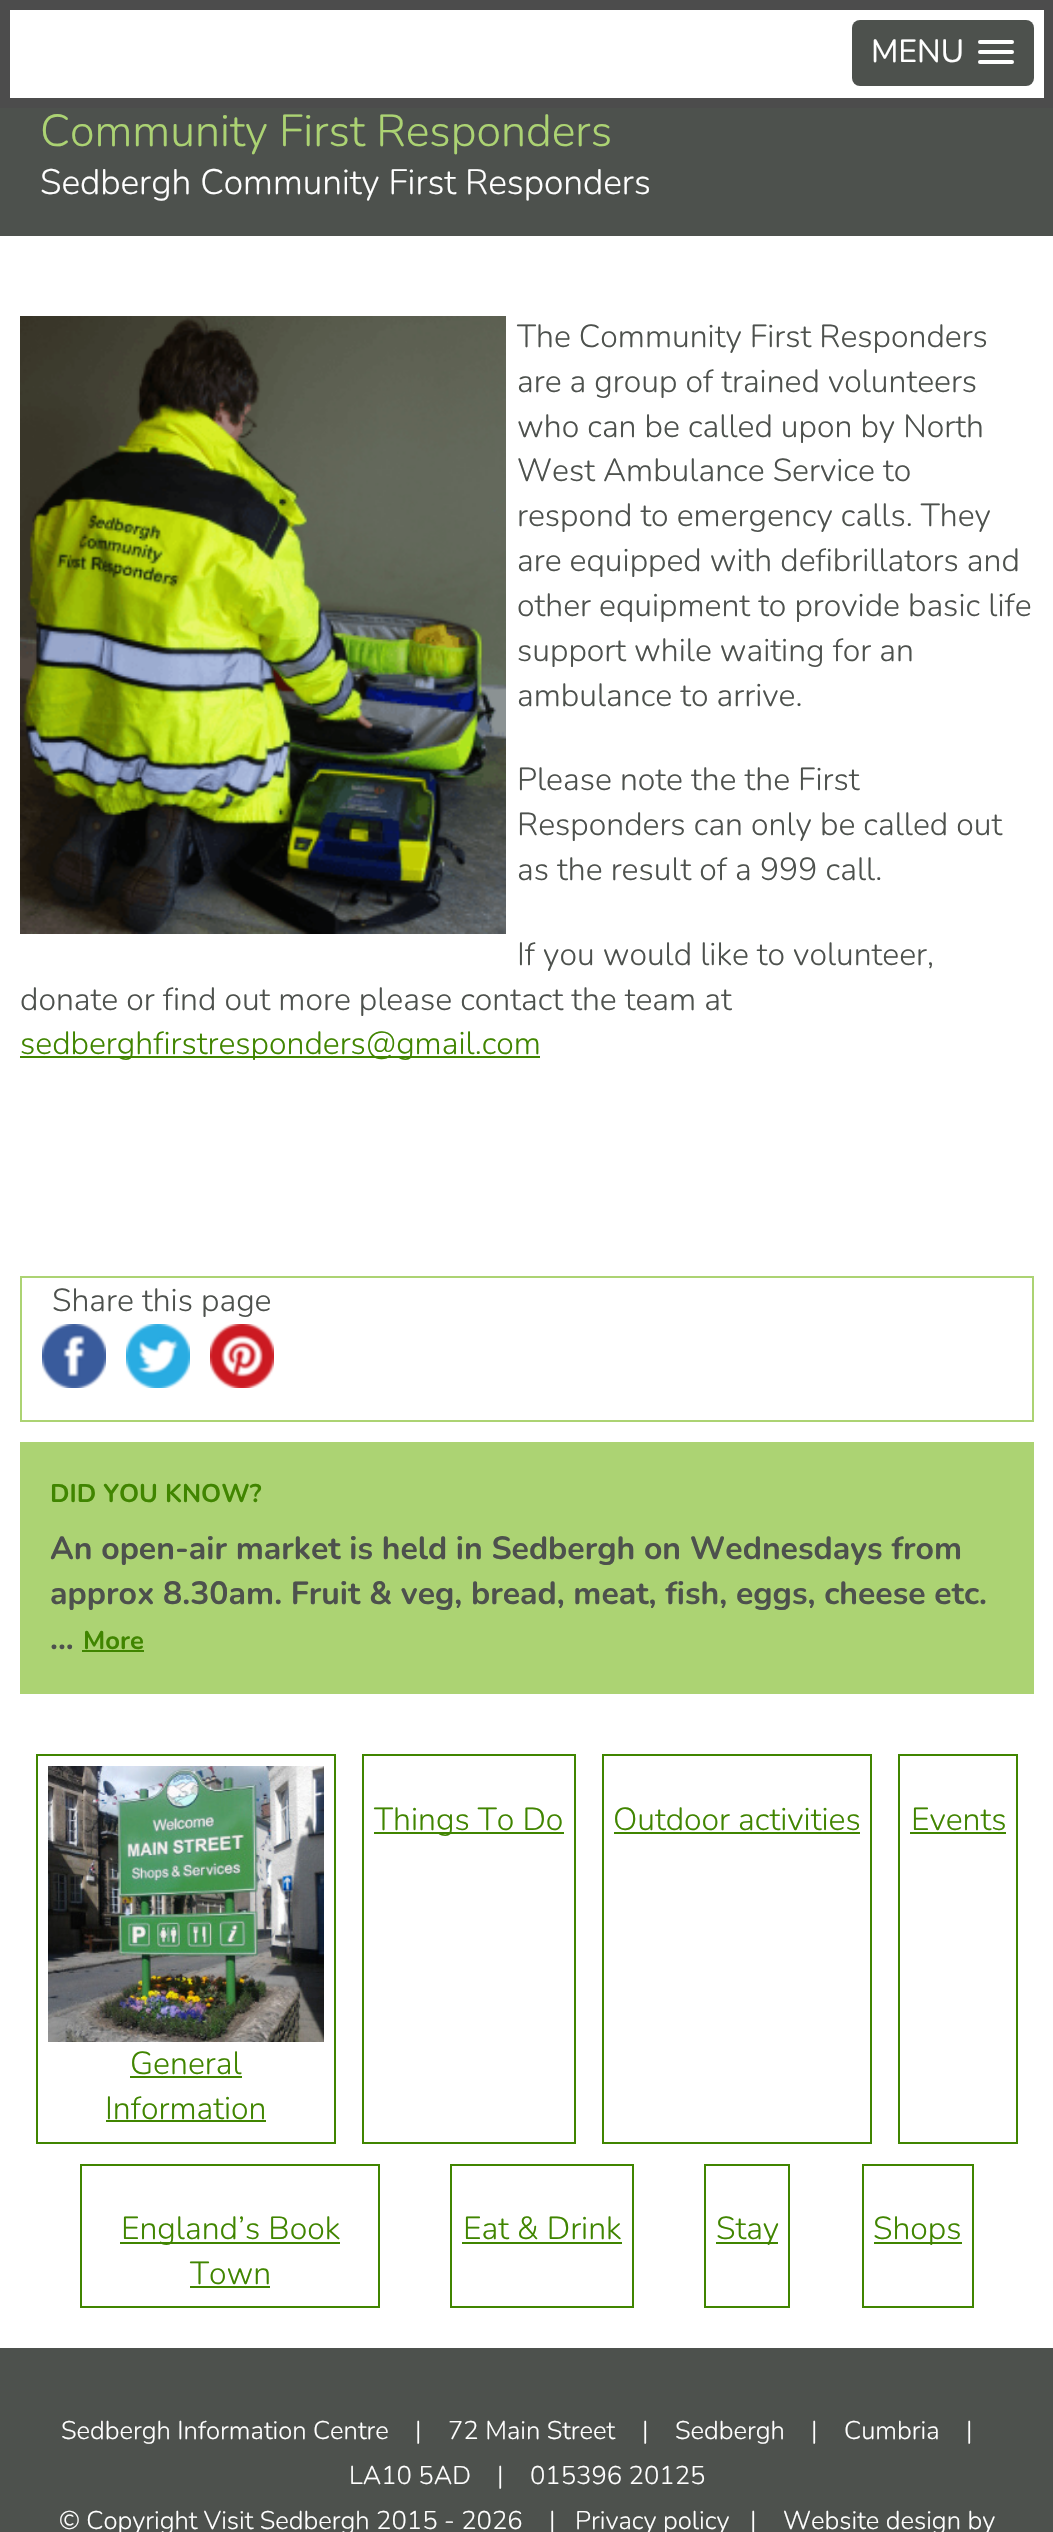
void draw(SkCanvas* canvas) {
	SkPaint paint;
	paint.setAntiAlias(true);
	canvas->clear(0xffffffff);
	paint.setColor(0xff4c4c4c);
	canvas->drawRect(SkRect::MakeXYWH(0, 0, 1053, 108), paint);
	paint.setColor(0xffffffff);
	canvas->drawRect(SkRect::MakeXYWH(10, 10, 1034, 88), paint);
	paint.setColor(0xff4d514d);
	canvas->drawRoundRect(SkRect::MakeXYWH(852, 20, 182, 66), 8, 8, paint);
	SkFont f1(fontMgr->matchFamilyStyle("Nunito", SkFontStyle::Normal()), 32);
	f1.setSubpixel(true);
	paint.setColor(0xffffffff);
	canvas->drawString("MENU", 871, 62, f1, paint);
	canvas->drawRoundRect(SkRect::MakeXYWH(978, 40, 36, 4), 2, 2, paint);
	canvas->drawRoundRect(SkRect::MakeXYWH(978, 50, 36, 4), 2, 2, paint);
	canvas->drawRoundRect(SkRect::MakeXYWH(978, 60, 36, 4), 2, 2, paint);
	paint.setColor(0xff4d514d);
	canvas->drawRect(SkRect::MakeXYWH(0, 108, 1053, 128), paint);
	SkFont f2(fontMgr->matchFamilyStyle("Nunito", SkFontStyle(300, SkFontStyle::kNormal_Width, SkFontStyle::kUpright_Slant)), 44.75);
	f2.setSubpixel(true);
	paint.setColor(0xffacd373);
	canvas->drawString("Community First Responders", 40, 146, f2, paint);
	SkFont f3(fontMgr->matchFamilyStyle("Nunito", SkFontStyle(300, SkFontStyle::kNormal_Width, SkFontStyle::kUpright_Slant)), 35.25);
	f3.setSubpixel(true);
	paint.setColor(0xffffffff);
	canvas->drawString("Sedbergh Community First Responders", 40, 194, f3, paint);
	canvas->drawImageRect(SkImages::DeferredFromEncodedData(SkData::MakeFromFileName("img1.png")), SkRect::MakeXYWH(20, 316, 486, 618), SkSamplingOptions());
	SkFont f4(fontMgr->matchFamilyStyle("Nunito", SkFontStyle(300, SkFontStyle::kNormal_Width, SkFontStyle::kUpright_Slant)), 32);
	f4.setSubpixel(true);
	paint.setColor(0xff4d514d);
	canvas->drawString("The Community First Responders", 517, 347, f4, paint);
	canvas->drawString("are a group of trained volunteers", 517, 392, f4, paint);
	canvas->drawString("who can be called upon by North", 517, 437, f4, paint);
	canvas->drawString("West Ambulance Service to", 517, 481, f4, paint);
	canvas->drawString("respond to emergency calls. They", 517, 526, f4, paint);
	canvas->drawString("are equipped with defibrillators and", 517, 571, f4, paint);
	canvas->drawString("other equipment to provide basic life", 517, 616, f4, paint);
	canvas->drawString("support while waiting for an", 517, 661, f4, paint);
	canvas->drawString("ambulance to arrive.", 517, 706, f4, paint);
	canvas->drawString("Please note the the First", 517, 790, f4, paint);
	canvas->drawString("Responders can only be called out", 517, 835, f4, paint);
	canvas->drawString("as the result of a 999 call.", 517, 880, f4, paint);
	canvas->drawString("If you would like to volunteer,", 517, 965, f4, paint);
	canvas->drawString("donate or find out more please contact the team at", 20, 1010, f4, paint);
	paint.setColor(0xff408500);
	canvas->drawRect(SkRect::MakeXYWH(20, 1056, 520, 2), paint);
	canvas->drawString("sedberghfirstresponders@gmail.com", 20, 1054, f4, paint);
	paint.setStroke(true);
	paint.setStrokeWidth(2);
	paint.setColor(0xffacd373);
	canvas->drawRect(SkRect::MakeXYWH(21, 1277, 1012, 144), paint);
	paint.setStroke(false);
	paint.setColor(0xff4d514d);
	canvas->drawString("Share this page", 52, 1311, f4, paint);
	canvas->drawImageRect(SkImages::DeferredFromEncodedData(SkData::MakeFromFileName("img2.png")), SkRect::MakeXYWH(42, 1324, 64, 64), SkSamplingOptions());
	canvas->drawImageRect(SkImages::DeferredFromEncodedData(SkData::MakeFromFileName("img3.png")), SkRect::MakeXYWH(126, 1324, 64, 64), SkSamplingOptions());
	canvas->drawImageRect(SkImages::DeferredFromEncodedData(SkData::MakeFromFileName("img4.png")), SkRect::MakeXYWH(210, 1324, 64, 64), SkSamplingOptions());
	paint.setColor(0xffacd373);
	canvas->drawRect(SkRect::MakeXYWH(20, 1442, 1014, 252), paint);
	SkFont f5(fontMgr->matchFamilyStyle("Nunito", SkFontStyle::Bold()), 25.6);
	f5.setSubpixel(true);
	paint.setColor(0xff408500);
	canvas->drawString("DID YOU KNOW?", 50, 1502, f5, paint);
	SkFont f6(fontMgr->matchFamilyStyle("Nunito", SkFontStyle::Bold()), 32);
	f6.setSubpixel(true);
	paint.setColor(0xff4d514d);
	canvas->drawString("An open-air market is held in Sedbergh on Wednesdays from", 50, 1559, f6, paint);
	canvas->drawString("approx 8.30am. Fruit & veg, bread, meat, fish, eggs, cheese etc.", 50, 1604, f6, paint);
	canvas->drawString("...", 50, 1649, f6, paint);
	paint.setColor(0xff408500);
	canvas->drawString("More", 83, 1649, f5, paint);
	canvas->drawRect(SkRect::MakeXYWH(82, 1650, 62, 2), paint);
	paint.setStroke(true);
	canvas->drawRect(SkRect::MakeXYWH(363, 1755, 212, 388), paint);
	paint.setStroke(false);
	canvas->drawRect(SkRect::MakeXYWH(374, 1832, 190, 2), paint);
	canvas->drawString("Things To Do", 374, 1830, f4, paint);
	paint.setStroke(true);
	canvas->drawRect(SkRect::MakeXYWH(603, 1755, 268, 388), paint);
	paint.setStroke(false);
	canvas->drawString("Outdoor activities", 613, 1830, f4, paint);
	canvas->drawRect(SkRect::MakeXYWH(614, 1832, 246, 2), paint);
	paint.setStroke(true);
	canvas->drawRect(SkRect::MakeXYWH(899, 1755, 118, 388), paint);
	paint.setStroke(false);
	canvas->drawString("Events", 911, 1830, f4, paint);
	canvas->drawRect(SkRect::MakeXYWH(910, 1832, 96, 2), paint);
	paint.setStroke(true);
	canvas->drawRect(SkRect::MakeXYWH(37, 1755, 298, 388), paint);
	canvas->drawImageRect(SkImages::DeferredFromEncodedData(SkData::MakeFromFileName("img5.png")), SkRect::MakeXYWH(48, 1766, 276, 276), SkSamplingOptions());
	paint.setStroke(false);
	canvas->drawString("General", 130, 2074, f4, paint);
	canvas->drawRect(SkRect::MakeXYWH(130, 2076, 112, 2), paint);
	canvas->drawString("Information", 105, 2119, f4, paint);
	canvas->drawRect(SkRect::MakeXYWH(106, 2120, 160, 2), paint);
	paint.setStroke(true);
	canvas->drawRect(SkRect::MakeXYWH(81, 2165, 298, 142), paint);
	paint.setStroke(false);
	canvas->drawRect(SkRect::MakeXYWH(120, 2242, 220, 2), paint);
	canvas->drawString("England’s Book", 121, 2239, f4, paint);
	canvas->drawString("Town", 190, 2284, f4, paint);
	canvas->drawRect(SkRect::MakeXYWH(190, 2286, 80, 2), paint);
	paint.setStroke(true);
	canvas->drawRect(SkRect::MakeXYWH(451, 2165, 182, 142), paint);
	paint.setStroke(false);
	canvas->drawString("Eat & Drink", 463, 2239, f4, paint);
	canvas->drawRect(SkRect::MakeXYWH(462, 2242, 160, 2), paint);
	paint.setStroke(true);
	canvas->drawRect(SkRect::MakeXYWH(705, 2165, 84, 142), paint);
	paint.setStroke(false);
	canvas->drawRect(SkRect::MakeXYWH(716, 2242, 62, 2), paint);
	canvas->drawString("Stay", 716, 2239, f4, paint);
	paint.setStroke(true);
	canvas->drawRect(SkRect::MakeXYWH(863, 2165, 110, 142), paint);
	paint.setStroke(false);
	canvas->drawRect(SkRect::MakeXYWH(874, 2242, 88, 2), paint);
	canvas->drawString("Shops", 873, 2239, f4, paint);
	paint.setColor(0xff4d514d);
	canvas->drawRect(SkRect::MakeXYWH(0, 2348, 1053, 184), paint);
	SkFont f7(fontMgr->matchFamilyStyle("Nunito", SkFontStyle(300, SkFontStyle::kNormal_Width, SkFontStyle::kUpright_Slant)), 25.6);
	f7.setSubpixel(true);
	paint.setColor(0xffffffff);
	canvas->drawString("Sedbergh Information Centre", 61, 2439, f7, paint);
	canvas->drawString("|", 415, 2439, f7, paint);
	canvas->drawString("72 Main Street", 448, 2439, f7, paint);
	canvas->drawString("|", 642, 2439, f7, paint);
	canvas->drawString("Sedbergh", 675, 2439, f7, paint);
	canvas->drawString("|", 811, 2439, f7, paint);
	canvas->drawString("Cumbria", 844, 2439, f7, paint);
	canvas->drawString("|", 966, 2439, f7, paint);
	canvas->drawString("LA10 5AD", 349, 2484, f7, paint);
	canvas->drawString("|", 497, 2484, f7, paint);
	canvas->drawString("015396 20125", 530, 2484, f7, paint);
	canvas->drawString("© Copyright Visit Sedbergh 2015 - 2026", 59, 2529, f7, paint);
	canvas->drawString("|", 549, 2529, f7, paint);
	canvas->drawString("Privacy policy", 575, 2529, f7, paint);
	canvas->drawString("|", 750, 2529, f7, paint);
	canvas->drawString("Website design by", 783, 2529, f7, paint);
}
